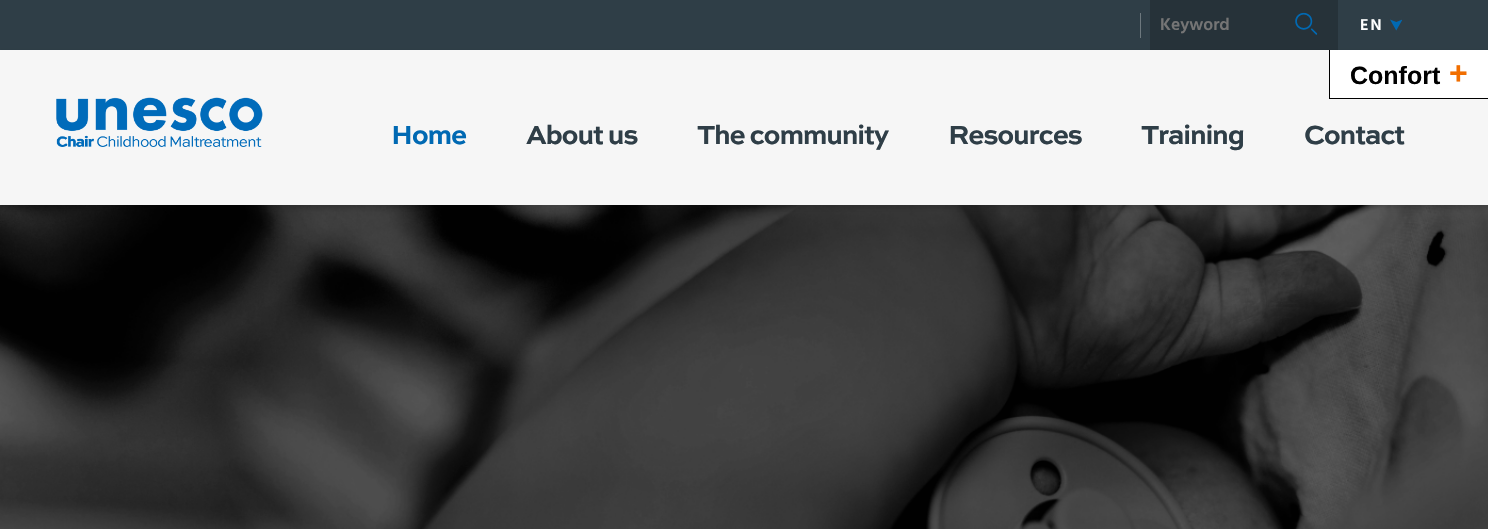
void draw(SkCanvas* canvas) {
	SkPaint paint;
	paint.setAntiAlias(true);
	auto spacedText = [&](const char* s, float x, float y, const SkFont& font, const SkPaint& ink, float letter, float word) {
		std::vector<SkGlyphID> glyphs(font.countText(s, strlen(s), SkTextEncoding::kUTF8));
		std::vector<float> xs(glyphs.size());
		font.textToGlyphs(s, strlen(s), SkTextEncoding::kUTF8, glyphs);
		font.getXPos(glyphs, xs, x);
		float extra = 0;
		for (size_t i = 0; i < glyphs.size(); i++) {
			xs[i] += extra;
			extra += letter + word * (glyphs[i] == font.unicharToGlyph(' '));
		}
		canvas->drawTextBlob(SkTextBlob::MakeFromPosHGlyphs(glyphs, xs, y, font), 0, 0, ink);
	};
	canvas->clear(0xff2f3e47);
	paint.setColor(0xff6d787e);
	canvas->drawRect(SkRect::MakeXYWH(1140, 13, 1, 25), paint);
	paint.setColor(0xff263239);
	canvas->drawRect(SkRect::MakeXYWH(1150, 0, 188, 50), paint);
	SkFont f1(fontMgr->matchFamilyStyle("Hind", SkFontStyle(600, SkFontStyle::kNormal_Width, SkFontStyle::kUpright_Slant)), 17.5);
	f1.setSubpixel(true);
	paint.setColor(0xff757575);
	canvas->drawString("Keyword", 1160, 30, f1, paint);
	canvas->drawImageRect(SkImages::DeferredFromEncodedData(SkData::MakeFromFileName("img1.png")), SkRect::MakeXYWH(1295, 12, 23, 23), SkSamplingOptions());
	SkFont f2(fontMgr->matchFamilyStyle("Hind", SkFontStyle(600, SkFontStyle::kNormal_Width, SkFontStyle::kUpright_Slant)), 16);
	f2.setSubpixel(true);
	paint.setColor(0xffffffff);
	spacedText("EN", 1360, 30, f2, paint, 2, 0);
	canvas->drawImageRect(SkImages::DeferredFromEncodedData(SkData::MakeFromFileName("img2.png")), SkRect::MakeXYWH(1390, 19, 12, 12), SkSamplingOptions());
	canvas->drawImageRect(SkImages::DeferredFromEncodedData(SkData::MakeFromFileName("img4.png")), SkRect::MakeXYWH(0, 205, 1488, 324), SkSamplingOptions());
	paint.setColor(0x26000000);
	paint.setMaskFilter(SkMaskFilter::MakeBlur(kNormal_SkBlurStyle, 2.5));
	canvas->drawRect(SkRect::MakeXYWH(0, 53, 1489, 155), paint);
	paint.setMaskFilter(nullptr);
	paint.setColor(0xfff6f6f6);
	canvas->drawRect(SkRect::MakeXYWH(0, 50, 1488, 155), paint);
	canvas->drawImageRect(SkImages::DeferredFromEncodedData(SkData::MakeFromFileName("img3.png")), SkRect::MakeXYWH(56, 97, 207, 50), SkSamplingOptions());
	SkFont f3(fontMgr->matchFamilyStyle("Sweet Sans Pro", SkFontStyle::Bold()), 27.5);
	f3.setSubpixel(true);
	paint.setColor(0xff0069b3);
	spacedText("Home", 391, 144, f3, paint, -1.25, 0);
	paint.setColor(0xff2f3e47);
	spacedText("About us", 526, 144, f3, paint, -1.25, 0);
	spacedText("The community", 697, 144, f3, paint, -1.25, 0);
	spacedText("Resources", 948, 144, f3, paint, -1.25, 0);
	spacedText("Training", 1141, 144, f3, paint, -1.25, 0);
	spacedText("Contact", 1304, 144, f3, paint, -1.25, 0);
	paint.setColor(0xffffffff);
	canvas->drawRect(SkRect::MakeXYWH(1330, 50, 158, 48), paint);
	paint.setColor(0xff000000);
	canvas->drawRect(SkRect::MakeXYWH(1329, 98, 159, 1), paint);
	canvas->drawRect(SkRect::MakeXYWH(1329, 50, 1, 49), paint);
	SkFont f4(fontMgr->matchFamilyStyle("Liberation Sans", SkFontStyle::Bold()), 25);
	f4.setSubpixel(true);
	canvas->drawString("Confort", 1350, 84, f4, paint);
	SkFont f5(fontMgr->matchFamilyStyle("Liberation Sans", SkFontStyle::Bold()), 32);
	f5.setSubpixel(true);
	paint.setColor(0xfff16e00);
	canvas->drawString("+", 1449, 84, f5, paint);
}
